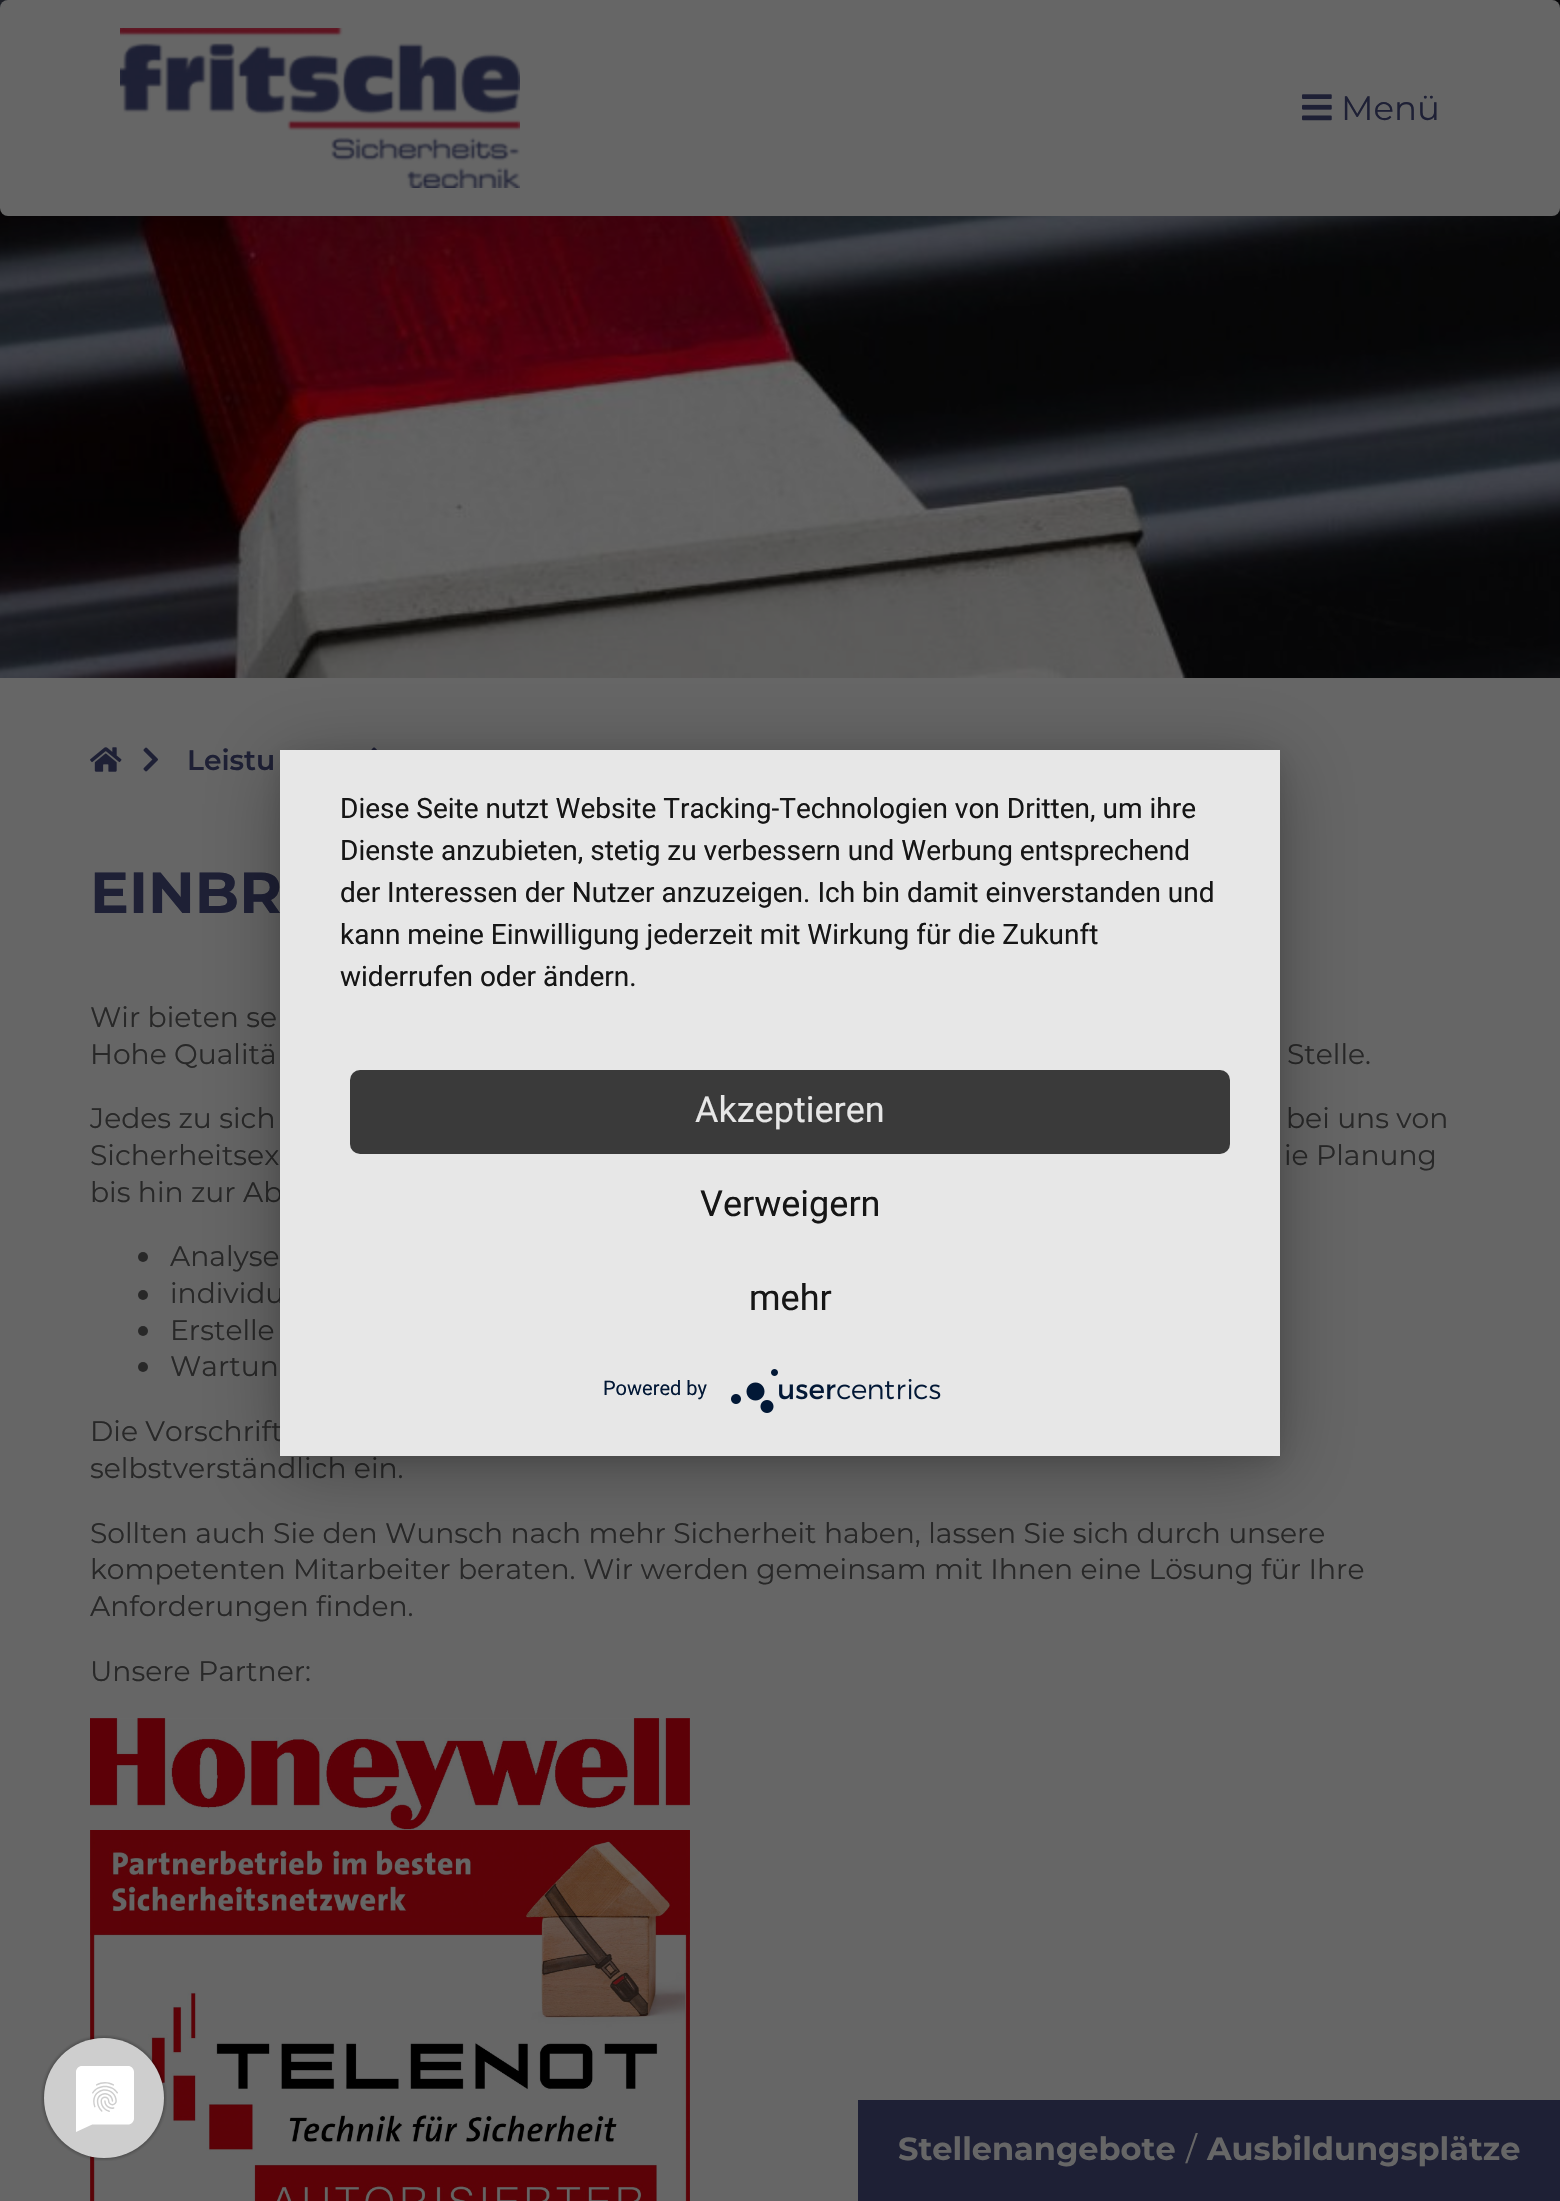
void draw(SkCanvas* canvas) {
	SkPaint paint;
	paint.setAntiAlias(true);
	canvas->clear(0xff666666);
	canvas->drawImageRect(SkImages::DeferredFromEncodedData(SkData::MakeFromFileName("img1.png")), SkRect::MakeXYWH(0, 0, 1560, 678), SkSamplingOptions());
	paint.setColor(0xff666666);
	canvas->drawRoundRect(SkRect::MakeXYWH(0, 0, 1560, 216), 8, 8, paint);
	canvas->drawImageRect(SkImages::DeferredFromEncodedData(SkData::MakeFromFileName("img2.png")), SkRect::MakeXYWH(120, 28, 400, 160), SkSamplingOptions());
	canvas->drawImageRect(SkImages::DeferredFromEncodedData(SkData::MakeFromFileName("img3.png")), SkRect::MakeXYWH(1302, 94, 30, 27), SkSamplingOptions());
	SkFont f1(fontMgr->matchFamilyStyle("Montserrat", SkFontStyle::Normal()), 34);
	f1.setSubpixel(true);
	paint.setColor(0xff1e2035);
	canvas->drawString("Menü", 1341, 120, f1, paint);
	canvas->drawImageRect(SkImages::DeferredFromEncodedData(SkData::MakeFromFileName("img4.png")), SkRect::MakeXYWH(90, 747, 32, 25), SkSamplingOptions());
	canvas->drawImageRect(SkImages::DeferredFromEncodedData(SkData::MakeFromFileName("img5.png")), SkRect::MakeXYWH(143, 747, 15, 25), SkSamplingOptions());
	SkFont f2(fontMgr->matchFamilyStyle("Montserrat", SkFontStyle(600, SkFontStyle::kNormal_Width, SkFontStyle::kUpright_Slant)), 28.2);
	f2.setSubpixel(true);
	canvas->drawString("Leistu", 187, 770, f2, paint);
	canvas->drawImageRect(SkImages::DeferredFromEncodedData(SkData::MakeFromFileName("img6.png")), SkRect::MakeXYWH(371, 747, 6, 3), SkSamplingOptions());
	SkFont f3(fontMgr->matchFamilyStyle("Montserrat", SkFontStyle::Bold()), 58);
	f3.setSubpixel(true);
	canvas->drawString("EINBR", 90, 913, f3, paint);
	SkFont f4(fontMgr->matchFamilyStyle("Montserrat", SkFontStyle::Normal()), 28.2);
	f4.setSubpixel(true);
	paint.setColor(0xff282828);
	canvas->drawString("Wir bieten se", 90, 1027, f4, paint);
	canvas->drawString("Hohe Qualitä", 90, 1064, f4, paint);
	canvas->drawString("Stelle.", 1287, 1064, f4, paint);
	canvas->drawString("Jedes zu sich", 90, 1128, f4, paint);
	canvas->drawString("bei uns von", 1286, 1128, f4, paint);
	canvas->drawString("Sicherheitsex", 90, 1165, f4, paint);
	canvas->drawString("ie Planung", 1284, 1165, f4, paint);
	canvas->drawString("bis hin zur Ab", 90, 1202, f4, paint);
	canvas->drawCircle(143, 1257, 5, paint);
	canvas->drawString("Analyse", 170, 1266, f4, paint);
	canvas->drawCircle(143, 1295, 5, paint);
	canvas->drawString("individu", 170, 1303, f4, paint);
	canvas->drawCircle(143, 1331, 5, paint);
	canvas->drawString("Erstelle", 170, 1340, f4, paint);
	canvas->drawCircle(143, 1367, 5, paint);
	canvas->drawString("Wartun", 170, 1376, f4, paint);
	canvas->drawString("Die Vorschrift", 90, 1441, f4, paint);
	canvas->drawString("selbstverständlich ein.", 90, 1478, f4, paint);
	canvas->drawString("Sollten auch Sie den Wunsch nach mehr Sicherheit haben, lassen Sie sich durch unsere", 90, 1543, f4, paint);
	canvas->drawString("kompetenten Mitarbeiter beraten. Wir werden gemeinsam mit Ihnen eine Lösung für Ihre", 90, 1579, f4, paint);
	canvas->drawString("Anforderungen finden.", 90, 1616, f4, paint);
	canvas->drawString("Unsere Partner:", 90, 1681, f4, paint);
	canvas->drawImageRect(SkImages::DeferredFromEncodedData(SkData::MakeFromFileName("img7.png")), SkRect::MakeXYWH(90, 1718, 600, 112), SkSamplingOptions());
	canvas->drawImageRect(SkImages::DeferredFromEncodedData(SkData::MakeFromFileName("img8.png")), SkRect::MakeXYWH(90, 1830, 600, 371), SkSamplingOptions());
	paint.setColor(0xff1e2035);
	canvas->drawRect(SkRect::MakeXYWH(858, 2100, 702, 101), paint);
	SkFont f5(fontMgr->matchFamilyStyle("Montserrat", SkFontStyle::Bold()), 32);
	f5.setSubpixel(true);
	paint.setColor(0xff666666);
	canvas->drawString("Stellenangebote", 898, 2160, f5, paint);
	SkFont f6(fontMgr->matchFamilyStyle("Montserrat", SkFontStyle::Normal()), 32);
	f6.setSubpixel(true);
	canvas->drawString("/", 1186, 2160, f6, paint);
	canvas->drawString("Ausbildungsplätze", 1207, 2160, f5, paint);
	paint.setColor(0x1a000000);
	paint.setMaskFilter(SkMaskFilter::MakeBlur(kNormal_SkBlurStyle, 10));
	canvas->drawRoundRect(SkRect::MakeXYWH(280, 756, 1000, 706), 10, 10, paint);
	paint.setMaskFilter(nullptr);
	paint.setColor(0x4d000000);
	paint.setMaskFilter(SkMaskFilter::MakeBlur(kNormal_SkBlurStyle, 36));
	canvas->drawRect(SkRect::MakeXYWH(280, 762, 1000, 706), paint);
	paint.setMaskFilter(nullptr);
	paint.setColor(0xffe7e7e7);
	canvas->drawRect(SkRect::MakeXYWH(280, 750, 1000, 706), paint);
	SkFont f7(fontMgr->matchFamilyStyle("Roboto", SkFontStyle::Normal()), 28);
	f7.setSubpixel(true);
	paint.setColor(0xff161616);
	canvas->drawString("Diese Seite nutzt Website Tracking-Technologien von Dritten, um ihre", 340, 818, f7, paint);
	canvas->drawString("Dienste anzubieten, stetig zu verbessern und Werbung entsprechend", 340, 860, f7, paint);
	canvas->drawString("der Interessen der Nutzer anzuzeigen. Ich bin damit einverstanden und", 340, 902, f7, paint);
	canvas->drawString("kann meine Einwilligung jederzeit mit Wirkung für die Zukunft", 340, 944, f7, paint);
	canvas->drawString("widerrufen oder ändern.", 340, 986, f7, paint);
	paint.setColor(0xff3a3a3a);
	canvas->drawRoundRect(SkRect::MakeXYWH(350, 1070, 880, 84), 10, 10, paint);
	SkFont f8(fontMgr->matchFamilyStyle("Roboto", SkFontStyle::Normal()), 36);
	f8.setSubpixel(true);
	paint.setColor(0xffe6e6e6);
	canvas->drawString("Akzeptieren", 695, 1122, f8, paint);
	paint.setColor(0xff161616);
	canvas->drawString("Verweigern", 700, 1216, f8, paint);
	canvas->drawString("mehr", 749, 1310, f8, paint);
	SkFont f9(fontMgr->matchFamilyStyle("Roboto", SkFontStyle::Normal()), 20);
	f9.setSubpixel(true);
	paint.setColor(0xff021836);
	canvas->drawString("Powered by", 603, 1395, f9, paint);
	canvas->drawImageRect(SkImages::DeferredFromEncodedData(SkData::MakeFromFileName("img9.png")), SkRect::MakeXYWH(731, 1369, 210, 44), SkSamplingOptions());
	canvas->drawImageRect(SkImages::DeferredFromEncodedData(SkData::MakeFromFileName("img10.png")), SkRect::MakeXYWH(41, 2035, 126, 126), SkSamplingOptions());
}
